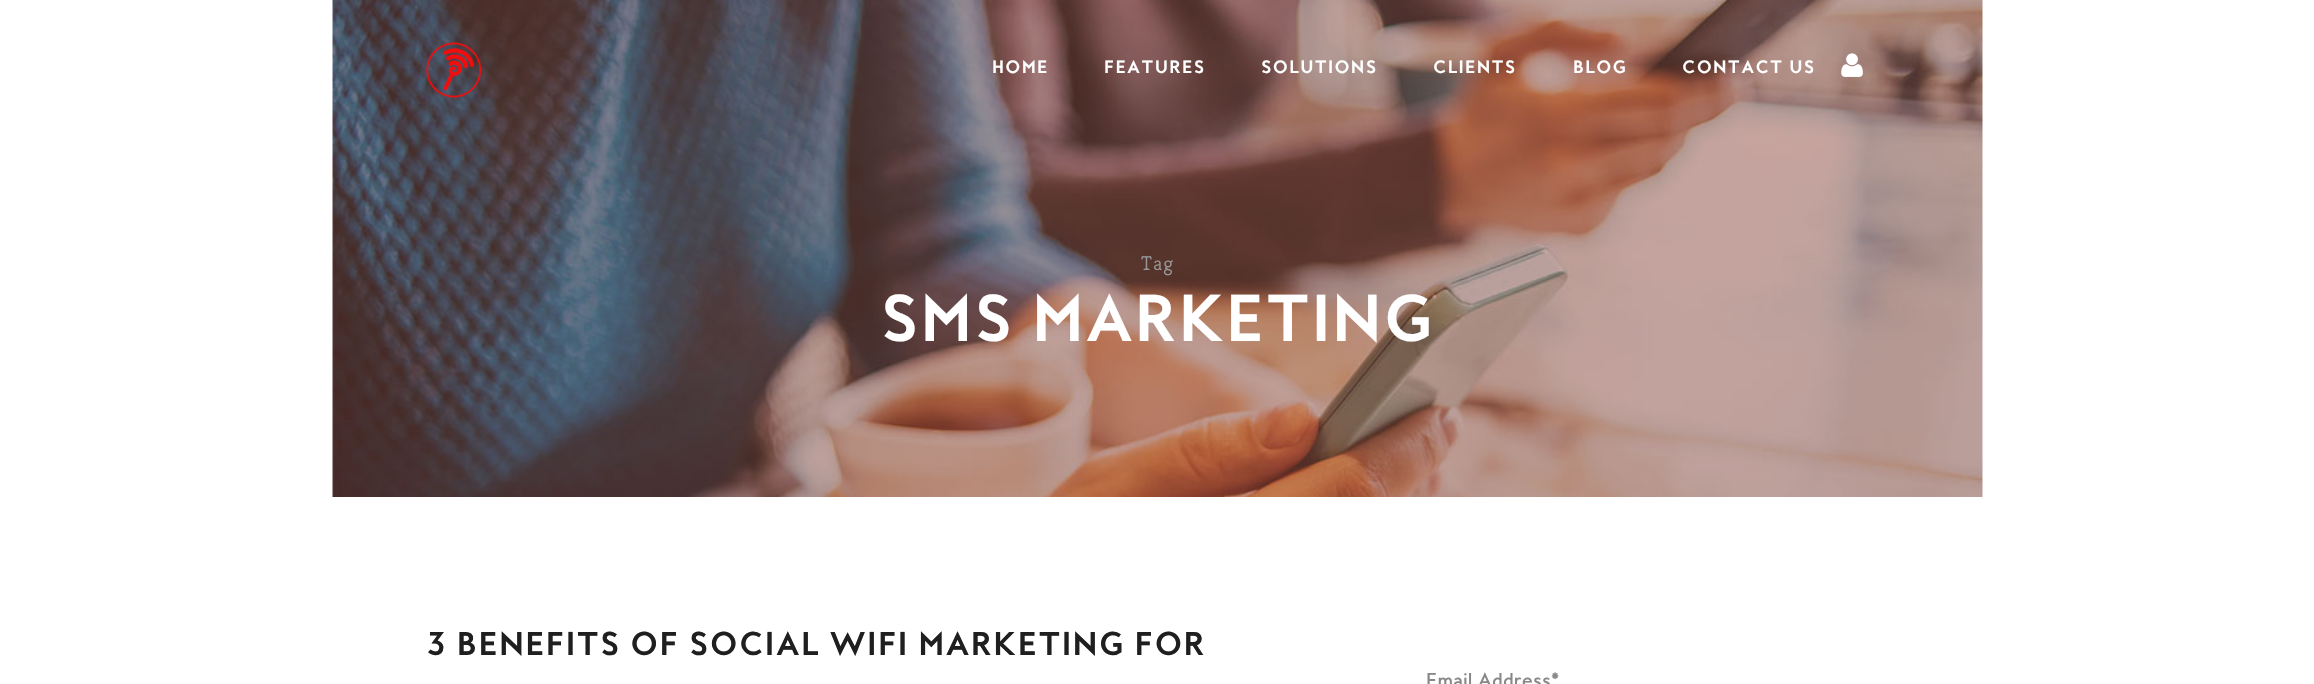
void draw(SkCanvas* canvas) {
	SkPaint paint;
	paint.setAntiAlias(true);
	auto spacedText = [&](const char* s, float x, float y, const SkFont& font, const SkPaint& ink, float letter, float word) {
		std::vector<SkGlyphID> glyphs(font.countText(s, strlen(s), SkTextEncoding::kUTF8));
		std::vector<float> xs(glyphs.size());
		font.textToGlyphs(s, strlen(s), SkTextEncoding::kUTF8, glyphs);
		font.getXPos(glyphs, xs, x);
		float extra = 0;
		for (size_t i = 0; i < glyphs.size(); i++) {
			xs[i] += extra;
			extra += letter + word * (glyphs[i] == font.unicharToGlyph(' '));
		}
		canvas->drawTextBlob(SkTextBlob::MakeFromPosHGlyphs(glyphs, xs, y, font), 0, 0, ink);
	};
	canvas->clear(0xffffffff);
	canvas->drawImageRect(SkImages::DeferredFromEncodedData(SkData::MakeFromFileName("img3.png")), SkRect::MakeXYWH(332, 0, 1651, 497), SkSamplingOptions());
	canvas->drawImageRect(SkImages::DeferredFromEncodedData(SkData::MakeFromFileName("img1.png")), SkRect::MakeXYWH(426, 42, 56, 56), SkSamplingOptions());
	SkFont f1(fontMgr->matchFamilyStyle("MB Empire", SkFontStyle::Bold()), 16.25);
	f1.setSubpixel(true);
	paint.setColor(0xffffffff);
	spacedText("HOME", 992, 73, f1, paint, 1.25, 0);
	spacedText("FEATURES", 1104, 73, f1, paint, 1.25, 0);
	spacedText("SOLUTIONS", 1261, 73, f1, paint, 1.25, 0);
	spacedText("CLIENTS", 1433, 73, f1, paint, 1.25, 0);
	spacedText("BLOG", 1573, 73, f1, paint, 1.25, 0);
	spacedText("CONTACT US", 1682, 73, f1, paint, 1.25, 0);
	canvas->drawImageRect(SkImages::DeferredFromEncodedData(SkData::MakeFromFileName("img2.png")), SkRect::MakeXYWH(1841, 53, 22, 24), SkSamplingOptions());
	SkFont f2(fontMgr->matchFamilyStyle("Kreon", SkFontStyle(300, SkFontStyle::kNormal_Width, SkFontStyle::kUpright_Slant)), 20);
	f2.setSubpixel(true);
	paint.setColor(0xff999999);
	spacedText("Tag", 1141, 270, f2, paint, 1.25, 0);
	SkFont f3(fontMgr->matchFamilyStyle("MB Empire", SkFontStyle::Bold()), 60);
	f3.setSubpixel(true);
	paint.setColor(0xffffffff);
	spacedText("SMS MARKETING", 880, 341, f3, paint, 1.25, 0);
	SkFont f4(fontMgr->matchFamilyStyle("MB Empire", SkFontStyle::Bold()), 30);
	f4.setSubpixel(true);
	paint.setColor(0xff1f1f1f);
	spacedText("3 BENEFITS OF SOCIAL WIFI MARKETING FOR", 426, 655, f4, paint, 1.25, 0);
	SkFont f5(fontMgr->matchFamilyStyle("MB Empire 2", SkFontStyle::Bold()), 17.5);
	f5.setSubpixel(true);
	paint.setColor(0xff888888);
	spacedText("Email Address*", 1426, 687, f5, paint, 0.6, 0);
}
